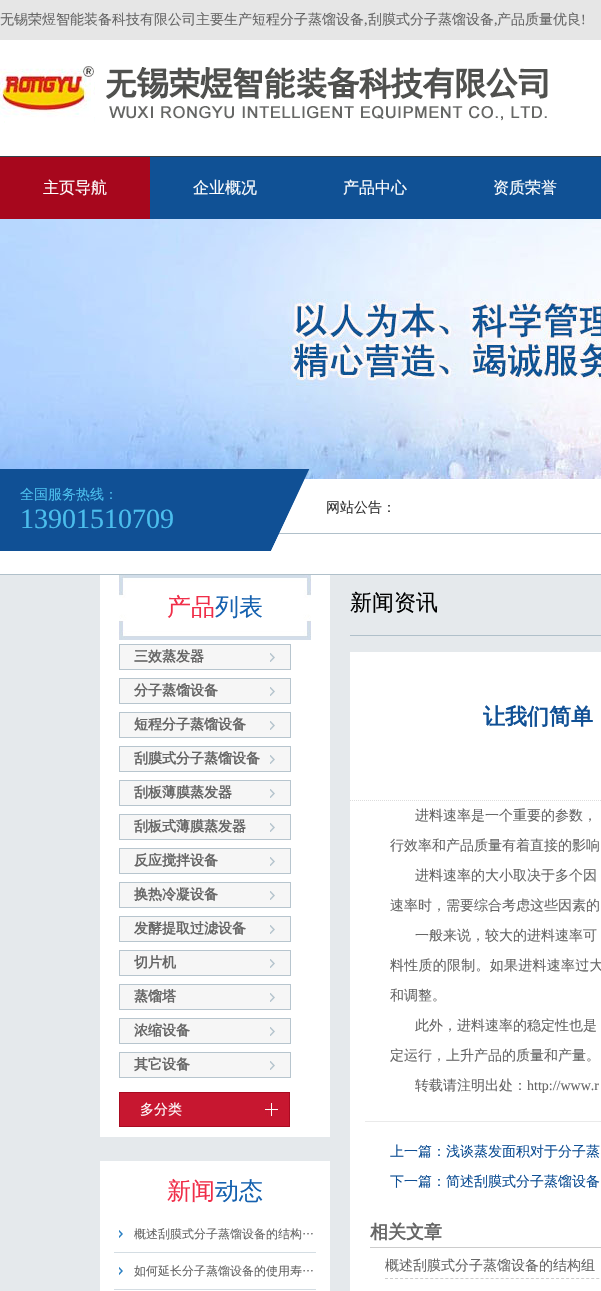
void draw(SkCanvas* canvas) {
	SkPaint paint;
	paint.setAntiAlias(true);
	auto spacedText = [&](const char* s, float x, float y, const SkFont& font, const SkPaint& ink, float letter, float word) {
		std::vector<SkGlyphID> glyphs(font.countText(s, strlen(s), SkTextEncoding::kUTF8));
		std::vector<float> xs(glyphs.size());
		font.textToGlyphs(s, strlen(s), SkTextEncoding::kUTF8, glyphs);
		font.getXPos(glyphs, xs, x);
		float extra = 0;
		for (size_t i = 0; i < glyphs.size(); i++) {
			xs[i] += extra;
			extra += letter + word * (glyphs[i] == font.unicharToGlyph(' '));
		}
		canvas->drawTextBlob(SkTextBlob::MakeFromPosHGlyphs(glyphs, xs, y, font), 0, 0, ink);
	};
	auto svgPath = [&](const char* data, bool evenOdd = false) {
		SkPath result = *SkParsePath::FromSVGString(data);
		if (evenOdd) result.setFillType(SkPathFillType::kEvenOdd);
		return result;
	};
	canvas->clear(0xffffffff);
	paint.setColor(0xffe6e6e6);
	canvas->drawRect(SkRect::MakeXYWH(0, 0, 601, 40), paint);
	SkFont f1(fontMgr->matchFamilyStyle("WenQuanYi Zen Hei", SkFontStyle(500, SkFontStyle::kNormal_Width, SkFontStyle::kUpright_Slant)), 14);
	f1.setSubpixel(true);
	paint.setColor(0xff666666);
	canvas->drawString("无锡荣煜智能装备科技有限公司主要生产短程分子蒸馏设备", 0, 24, f1, paint);
	SkFont f2(fontMgr->matchFamilyStyle("Liberation Serif", SkFontStyle::Normal()), 14);
	f2.setSubpixel(true);
	canvas->drawString(",", 364, 24, f2, paint);
	canvas->drawString("刮膜式分子蒸馏设备", 368, 24, f1, paint);
	canvas->drawString(",", 494, 24, f2, paint);
	canvas->drawString("产品质量优良", 497, 24, f1, paint);
	canvas->drawString("!", 581, 24, f2, paint);
	paint.setColor(0xff105195);
	canvas->drawRect(SkRect::MakeXYWH(150, 157, 451, 62), paint);
	canvas->drawImageRect(SkImages::DeferredFromEncodedData(SkData::MakeFromFileName("img1.png")), SkRect::MakeXYWH(0, 66, 548, 57), SkSamplingOptions());
	paint.setColor(0xff33414a);
	canvas->drawRect(SkRect::MakeXYWH(0, 156, 601, 1), paint);
	paint.setColor(0xffa7071d);
	canvas->drawRect(SkRect::MakeXYWH(0, 157, 150, 62), paint);
	SkFont f3(fontMgr->matchFamilyStyle("WenQuanYi Zen Hei", SkFontStyle(500, SkFontStyle::kNormal_Width, SkFontStyle::kUpright_Slant)), 16);
	f3.setSubpixel(true);
	paint.setColor(0xffffffff);
	canvas->drawString("主页导航", 43, 193, f3, paint);
	canvas->drawString("企业概况", 193, 193, f3, paint);
	canvas->drawString("产品中心", 343, 193, f3, paint);
	canvas->drawString("资质荣誉", 493, 193, f3, paint);
	canvas->drawImageRect(SkImages::DeferredFromEncodedData(SkData::MakeFromFileName("img2.png")), SkRect::MakeXYWH(0, 219, 601, 260), SkSamplingOptions());
	paint.setColor(0xffb0c0ca);
	canvas->drawRect(SkRect::MakeXYWH(279, 533, 322, 1), paint);
	canvas->drawImageRect(SkImages::DeferredFromEncodedData(SkData::MakeFromFileName("img3.png")), SkRect::MakeXYWH(0, 469, 310, 82), SkSamplingOptions());
	paint.setColor(0xff4bbeed);
	canvas->drawString("全国服务热线：", 20, 499, f1, paint);
	SkFont f4(fontMgr->matchFamilyStyle("Liberation Serif", SkFontStyle::Normal()), 28);
	f4.setSubpixel(true);
	canvas->drawString("13901510709", 20, 528, f4, paint);
	paint.setColor(0xff333333);
	canvas->drawString("网站公告：", 326, 512, f1, paint);
	paint.setColor(0xffe5e9ec);
	canvas->drawRect(SkRect::MakeXYWH(0, 575, 601, 716), paint);
	paint.setColor(0xffb0c0ca);
	canvas->drawRect(SkRect::MakeXYWH(0, 574, 601, 1), paint);
	paint.setColor(0xffffffff);
	canvas->drawRect(SkRect::MakeXYWH(100, 575, 230, 562), paint);
	canvas->drawImageRect(SkImages::DeferredFromEncodedData(SkData::MakeFromFileName("img4.png")), SkRect::MakeXYWH(119, 575, 192, 65), SkSamplingOptions());
	SkFont f5(fontMgr->matchFamilyStyle("WenQuanYi Zen Hei", SkFontStyle(500, SkFontStyle::kNormal_Width, SkFontStyle::kUpright_Slant)), 24);
	f5.setSubpixel(true);
	paint.setColor(0xfff02e49);
	canvas->drawString("产品", 167, 615, f5, paint);
	paint.setColor(0xff1561af);
	canvas->drawString("列表", 215, 615, f5, paint);
	paint.setColor(0xfff6f6f6);
	canvas->drawRect(SkRect::MakeXYWH(120, 645, 170, 24), paint);
	canvas->drawImageRect(SkImages::DeferredFromEncodedData(SkData::MakeFromFileName("img5.png")), SkRect::MakeXYWH(270, 653, 5, 9), SkSamplingOptions());
	paint.setStroke(true);
	paint.setStrokeWidth(1);
	paint.setColor(0xffb7c5ce);
	canvas->drawRect(SkRect::MakeXYWH(119.5, 644.5, 171, 25), paint);
	SkFont f6(fontMgr->matchFamilyStyle("WenQuanYi Zen Hei", SkFontStyle::Bold()), 14);
	f6.setSubpixel(true);
	paint.setStroke(false);
	paint.setColor(0xff666666);
	canvas->drawString("三效蒸发器", 134, 661, f6, paint);
	paint.setColor(0xfff6f6f6);
	canvas->drawRect(SkRect::MakeXYWH(120, 679, 170, 24), paint);
	canvas->drawImageRect(SkImages::DeferredFromEncodedData(SkData::MakeFromFileName("img5.png")), SkRect::MakeXYWH(270, 687, 5, 9), SkSamplingOptions());
	paint.setStroke(true);
	paint.setColor(0xffb7c5ce);
	canvas->drawRect(SkRect::MakeXYWH(119.5, 678.5, 171, 25), paint);
	paint.setStroke(false);
	paint.setColor(0xff666666);
	canvas->drawString("分子蒸馏设备", 134, 695, f6, paint);
	paint.setColor(0xfff6f6f6);
	canvas->drawRect(SkRect::MakeXYWH(120, 713, 170, 24), paint);
	canvas->drawImageRect(SkImages::DeferredFromEncodedData(SkData::MakeFromFileName("img5.png")), SkRect::MakeXYWH(270, 721, 5, 9), SkSamplingOptions());
	paint.setStroke(true);
	paint.setColor(0xffb7c5ce);
	canvas->drawRect(SkRect::MakeXYWH(119.5, 712.5, 171, 25), paint);
	paint.setStroke(false);
	paint.setColor(0xff666666);
	canvas->drawString("短程分子蒸馏设备", 134, 729, f6, paint);
	paint.setColor(0xfff6f6f6);
	canvas->drawRect(SkRect::MakeXYWH(120, 747, 170, 24), paint);
	canvas->drawImageRect(SkImages::DeferredFromEncodedData(SkData::MakeFromFileName("img5.png")), SkRect::MakeXYWH(270, 755, 5, 9), SkSamplingOptions());
	paint.setStroke(true);
	paint.setColor(0xffb7c5ce);
	canvas->drawRect(SkRect::MakeXYWH(119.5, 746.5, 171, 25), paint);
	paint.setStroke(false);
	paint.setColor(0xff666666);
	canvas->drawString("刮膜式分子蒸馏设备", 134, 763, f6, paint);
	paint.setColor(0xfff6f6f6);
	canvas->drawRect(SkRect::MakeXYWH(120, 781, 170, 24), paint);
	canvas->drawImageRect(SkImages::DeferredFromEncodedData(SkData::MakeFromFileName("img5.png")), SkRect::MakeXYWH(270, 789, 5, 9), SkSamplingOptions());
	paint.setStroke(true);
	paint.setColor(0xffb7c5ce);
	canvas->drawRect(SkRect::MakeXYWH(119.5, 780.5, 171, 25), paint);
	paint.setStroke(false);
	paint.setColor(0xff666666);
	canvas->drawString("刮板薄膜蒸发器", 134, 797, f6, paint);
	paint.setColor(0xfff6f6f6);
	canvas->drawRect(SkRect::MakeXYWH(120, 815, 170, 24), paint);
	canvas->drawImageRect(SkImages::DeferredFromEncodedData(SkData::MakeFromFileName("img5.png")), SkRect::MakeXYWH(270, 823, 5, 9), SkSamplingOptions());
	paint.setStroke(true);
	paint.setColor(0xffb7c5ce);
	canvas->drawRect(SkRect::MakeXYWH(119.5, 814.5, 171, 25), paint);
	paint.setStroke(false);
	paint.setColor(0xff666666);
	canvas->drawString("刮板式薄膜蒸发器", 134, 831, f6, paint);
	paint.setColor(0xfff6f6f6);
	canvas->drawRect(SkRect::MakeXYWH(120, 849, 170, 24), paint);
	canvas->drawImageRect(SkImages::DeferredFromEncodedData(SkData::MakeFromFileName("img5.png")), SkRect::MakeXYWH(270, 857, 5, 9), SkSamplingOptions());
	paint.setStroke(true);
	paint.setColor(0xffb7c5ce);
	canvas->drawRect(SkRect::MakeXYWH(119.5, 848.5, 171, 25), paint);
	paint.setStroke(false);
	paint.setColor(0xff666666);
	canvas->drawString("反应搅拌设备", 134, 865, f6, paint);
	paint.setColor(0xfff6f6f6);
	canvas->drawRect(SkRect::MakeXYWH(120, 883, 170, 24), paint);
	canvas->drawImageRect(SkImages::DeferredFromEncodedData(SkData::MakeFromFileName("img5.png")), SkRect::MakeXYWH(270, 891, 5, 9), SkSamplingOptions());
	paint.setStroke(true);
	paint.setColor(0xffb7c5ce);
	canvas->drawRect(SkRect::MakeXYWH(119.5, 882.5, 171, 25), paint);
	paint.setStroke(false);
	paint.setColor(0xff666666);
	canvas->drawString("换热冷凝设备", 134, 899, f6, paint);
	paint.setColor(0xfff6f6f6);
	canvas->drawRect(SkRect::MakeXYWH(120, 917, 170, 24), paint);
	canvas->drawImageRect(SkImages::DeferredFromEncodedData(SkData::MakeFromFileName("img5.png")), SkRect::MakeXYWH(270, 925, 5, 9), SkSamplingOptions());
	paint.setStroke(true);
	paint.setColor(0xffb7c5ce);
	canvas->drawRect(SkRect::MakeXYWH(119.5, 916.5, 171, 25), paint);
	paint.setStroke(false);
	paint.setColor(0xff666666);
	canvas->drawString("发酵提取过滤设备", 134, 933, f6, paint);
	paint.setColor(0xfff6f6f6);
	canvas->drawRect(SkRect::MakeXYWH(120, 951, 170, 24), paint);
	canvas->drawImageRect(SkImages::DeferredFromEncodedData(SkData::MakeFromFileName("img5.png")), SkRect::MakeXYWH(270, 959, 5, 9), SkSamplingOptions());
	paint.setStroke(true);
	paint.setColor(0xffb7c5ce);
	canvas->drawRect(SkRect::MakeXYWH(119.5, 950.5, 171, 25), paint);
	paint.setStroke(false);
	paint.setColor(0xff666666);
	canvas->drawString("切片机", 134, 967, f6, paint);
	paint.setColor(0xfff6f6f6);
	canvas->drawRect(SkRect::MakeXYWH(120, 985, 170, 24), paint);
	canvas->drawImageRect(SkImages::DeferredFromEncodedData(SkData::MakeFromFileName("img5.png")), SkRect::MakeXYWH(270, 993, 5, 9), SkSamplingOptions());
	paint.setStroke(true);
	paint.setColor(0xffb7c5ce);
	canvas->drawRect(SkRect::MakeXYWH(119.5, 984.5, 171, 25), paint);
	paint.setStroke(false);
	paint.setColor(0xff666666);
	canvas->drawString("蒸馏塔", 134, 1001, f6, paint);
	paint.setColor(0xfff6f6f6);
	canvas->drawRect(SkRect::MakeXYWH(120, 1019, 170, 24), paint);
	canvas->drawImageRect(SkImages::DeferredFromEncodedData(SkData::MakeFromFileName("img5.png")), SkRect::MakeXYWH(270, 1027, 5, 9), SkSamplingOptions());
	paint.setStroke(true);
	paint.setColor(0xffb7c5ce);
	canvas->drawRect(SkRect::MakeXYWH(119.5, 1018.5, 171, 25), paint);
	paint.setStroke(false);
	paint.setColor(0xff666666);
	canvas->drawString("浓缩设备", 134, 1035, f6, paint);
	paint.setColor(0xfff6f6f6);
	canvas->drawRect(SkRect::MakeXYWH(120, 1053, 170, 24), paint);
	canvas->drawImageRect(SkImages::DeferredFromEncodedData(SkData::MakeFromFileName("img5.png")), SkRect::MakeXYWH(270, 1061, 5, 9), SkSamplingOptions());
	paint.setStroke(true);
	paint.setColor(0xffb7c5ce);
	canvas->drawRect(SkRect::MakeXYWH(119.5, 1052.5, 171, 25), paint);
	paint.setStroke(false);
	paint.setColor(0xff666666);
	canvas->drawString("其它设备", 134, 1069, f6, paint);
	paint.setColor(0xffc71730);
	canvas->drawRect(SkRect::MakeXYWH(120, 1093, 169, 33), paint);
	canvas->drawImageRect(SkImages::DeferredFromEncodedData(SkData::MakeFromFileName("img6.png")), SkRect::MakeXYWH(265, 1103, 13, 13), SkSamplingOptions());
	paint.setStroke(true);
	paint.setColor(0xffa90b21);
	canvas->drawRect(SkRect::MakeXYWH(119.5, 1092.5, 170, 34), paint);
	paint.setStroke(false);
	paint.setColor(0xffffffff);
	canvas->drawString("多分类", 140, 1114, f1, paint);
	canvas->drawRect(SkRect::MakeXYWH(100, 1161, 230, 130), paint);
	paint.setColor(0xfff02e49);
	canvas->drawString("新闻", 167, 1199, f5, paint);
	paint.setColor(0xff1561af);
	canvas->drawString("动态", 215, 1199, f5, paint);
	canvas->drawImageRect(SkImages::DeferredFromEncodedData(SkData::MakeFromFileName("img7.png")), SkRect::MakeXYWH(119, 1230, 4, 8), SkSamplingOptions());
	paint.setColor(0xffd4dde3);
	canvas->drawRect(SkRect::MakeXYWH(114, 1252, 202, 1), paint);
	SkFont f7(fontMgr->matchFamilyStyle("WenQuanYi Zen Hei", SkFontStyle(500, SkFontStyle::kNormal_Width, SkFontStyle::kUpright_Slant)), 12);
	f7.setSubpixel(true);
	paint.setColor(0xff666666);
	canvas->drawString("概述刮膜式分子蒸馏设备的结构…", 134, 1238, f7, paint);
	canvas->drawImageRect(SkImages::DeferredFromEncodedData(SkData::MakeFromFileName("img7.png")), SkRect::MakeXYWH(119, 1267, 4, 8), SkSamplingOptions());
	paint.setColor(0xffd4dde3);
	canvas->drawRect(SkRect::MakeXYWH(114, 1289, 202, 1), paint);
	paint.setColor(0xff666666);
	canvas->drawString("如何延长分子蒸馏设备的使用寿…", 134, 1275, f7, paint);
	paint.setColor(0xffb0c0ca);
	canvas->drawRect(SkRect::MakeXYWH(350, 635, 251, 1), paint);
	SkFont f8(fontMgr->matchFamilyStyle("WenQuanYi Zen Hei", SkFontStyle(500, SkFontStyle::kNormal_Width, SkFontStyle::kUpright_Slant)), 22);
	f8.setSubpixel(true);
	paint.setColor(0xff000000);
	canvas->drawString("新闻资讯", 350, 610, f8, paint);
	paint.setColor(0xffffffff);
	canvas->drawRect(SkRect::MakeXYWH(350, 652, 251, 639), paint);
	SkFont f9(fontMgr->matchFamilyStyle("WenQuanYi Zen Hei", SkFontStyle::Bold()), 22);
	f9.setSubpixel(true);
	paint.setColor(0xff105095);
	canvas->drawString("让我们简单", 483, 724, f9, paint);
	paint.setStroke(true);
	paint.setColor(0xffdddddd);
	paint.setPathEffect(SkDashPathEffect::Make({{1, 1}}, 0));
	canvas->drawPath(svgPath("M350 800.5H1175"), paint);
	paint.setPathEffect(nullptr);
	paint.setStroke(false);
	paint.setColor(0xff666666);
	canvas->drawString("进料速率是一个重要的参数，", 415, 820, f1, paint);
	canvas->drawString("行效率和产品质量有着直接的影响", 390, 850, f1, paint);
	canvas->drawString("进料速率的大小取决于多个因", 415, 880, f1, paint);
	canvas->drawString("速率时，需要综合考虑这些因素的", 390, 910, f1, paint);
	canvas->drawString("一般来说，较大的进料速率可", 415, 940, f1, paint);
	spacedText("料性质的限制。如果进料速率过大", 390, 970, f1, paint, 0.25, 0);
	canvas->drawString("和调整。", 390, 1000, f1, paint);
	canvas->drawString("此外，进料速率的稳定性也是", 415, 1030, f1, paint);
	canvas->drawString("定运行，上升产品的质量和产量。", 390, 1060, f1, paint);
	canvas->drawString("转载请注明出处：", 415, 1090, f1, paint);
	canvas->drawString("http://www.r", 527, 1090, f2, paint);
	paint.setColor(0xffeaeaea);
	canvas->drawRect(SkRect::MakeXYWH(365, 1121, 236, 1), paint);
	paint.setColor(0xff105095);
	canvas->drawString("上一篇：浅谈蒸发面积对于分子蒸", 390, 1156, f1, paint);
	canvas->drawString("下一篇：简述刮膜式分子蒸馏设备", 390, 1186, f1, paint);
	paint.setColor(0xffcccccc);
	canvas->drawRect(SkRect::MakeXYWH(370, 1247, 231, 1), paint);
	SkFont f10(fontMgr->matchFamilyStyle("WenQuanYi Zen Hei", SkFontStyle::Bold()), 18);
	f10.setSubpixel(true);
	paint.setColor(0xff666666);
	canvas->drawString("相关文章", 370, 1238, f10, paint);
	paint.setStroke(true);
	paint.setColor(0xffcccccc);
	paint.setPathEffect(SkDashPathEffect::Make({{3, 2.03f}}, 0));
	canvas->drawPath(svgPath("M385 1278.5H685"), paint);
	paint.setPathEffect(nullptr);
	paint.setStroke(false);
	paint.setColor(0xff666666);
	canvas->drawString("概述刮膜式分子蒸馏设备的结构组", 385, 1270, f1, paint);
}
